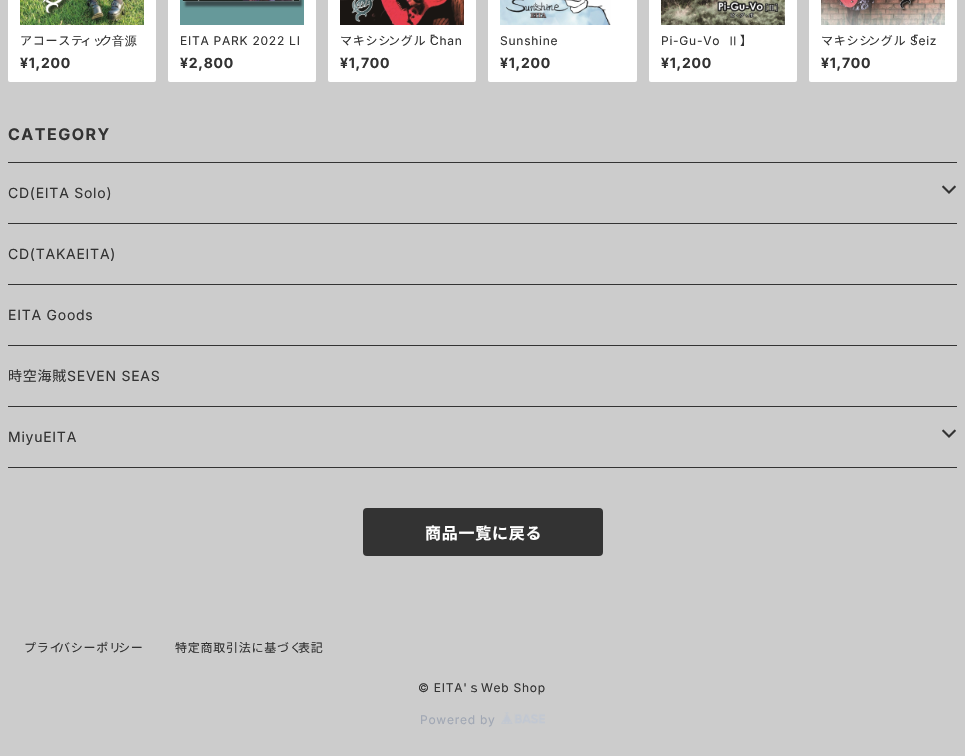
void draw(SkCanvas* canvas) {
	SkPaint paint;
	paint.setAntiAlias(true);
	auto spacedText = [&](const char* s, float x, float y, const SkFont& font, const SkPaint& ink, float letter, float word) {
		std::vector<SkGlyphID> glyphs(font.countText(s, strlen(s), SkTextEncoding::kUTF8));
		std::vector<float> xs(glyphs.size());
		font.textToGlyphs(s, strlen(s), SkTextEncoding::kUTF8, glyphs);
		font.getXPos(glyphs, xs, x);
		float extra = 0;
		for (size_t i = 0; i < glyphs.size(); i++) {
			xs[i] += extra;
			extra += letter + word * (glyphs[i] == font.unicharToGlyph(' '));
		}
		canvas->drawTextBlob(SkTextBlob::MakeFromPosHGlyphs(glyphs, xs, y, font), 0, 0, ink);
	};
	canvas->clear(0xffcccccc);
	paint.setColor(0xffffffff);
	canvas->drawRoundRect(SkRect::MakeXYWH(8, -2, 148, 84), 2, 2, paint);
	canvas->drawImageRect(SkImages::DeferredFromEncodedData(SkData::MakeFromFileName("img1.png")), SkRect::MakeXYWH(20, 0, 124, 25), SkSamplingOptions());
	SkFont f1(fontMgr->matchFamilyStyle("Noto Sans JP", SkFontStyle::Normal()), 12);
	f1.setSubpixel(true);
	paint.setColor(0xff333333);
	spacedText("アコーステ", 20, 45, f1, paint, 0.75, 0);
	spacedText("ィッ", 80, 45, f1, paint, 0.75, 0);
	spacedText("ク", 100, 45, f1, paint, 0.75, 0);
	SkFont f2(fontMgr->matchFamilyStyle("WenQuanYi Zen Hei", SkFontStyle(500, SkFontStyle::kNormal_Width, SkFontStyle::kUpright_Slant)), 12);
	f2.setSubpixel(true);
	spacedText("音源", 112, 45, f2, paint, 0.75, 0);
	SkFont f3(fontMgr->matchFamilyStyle("Inter", SkFontStyle::Bold()), 14);
	f3.setSubpixel(true);
	spacedText("¥1,200", 20, 68, f3, paint, 0.75, 0);
	paint.setColor(0xffffffff);
	canvas->drawRoundRect(SkRect::MakeXYWH(168, -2, 148, 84), 2, 2, paint);
	canvas->drawImageRect(SkImages::DeferredFromEncodedData(SkData::MakeFromFileName("img2.png")), SkRect::MakeXYWH(180, 0, 124, 25), SkSamplingOptions());
	SkFont f4(fontMgr->matchFamilyStyle("Inter", SkFontStyle::Normal()), 12);
	f4.setSubpixel(true);
	paint.setColor(0xff333333);
	spacedText("EITA PARK 2022 LI", 180, 45, f4, paint, 0.75, 0);
	spacedText("¥2,800", 180, 68, f3, paint, 0.75, 0);
	paint.setColor(0xffffffff);
	canvas->drawRoundRect(SkRect::MakeXYWH(328, -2, 148, 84), 2, 2, paint);
	canvas->drawImageRect(SkImages::DeferredFromEncodedData(SkData::MakeFromFileName("img3.png")), SkRect::MakeXYWH(340, 0, 124, 25), SkSamplingOptions());
	paint.setColor(0xff333333);
	spacedText("マキシシ", 340, 45, f1, paint, 0.75, 0);
	spacedText("ングル", 388, 45, f1, paint, 0.75, 0);
	spacedText("「", 423, 45, f1, paint, 0.75, 0);
	spacedText("Chan", 430, 45, f4, paint, 0.75, 0);
	spacedText("¥1,700", 340, 68, f3, paint, 0.75, 0);
	paint.setColor(0xffffffff);
	canvas->drawRoundRect(SkRect::MakeXYWH(488, -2, 149, 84), 2, 2, paint);
	canvas->drawImageRect(SkImages::DeferredFromEncodedData(SkData::MakeFromFileName("img4.png")), SkRect::MakeXYWH(500, 0, 111, 25), SkSamplingOptions());
	paint.setColor(0xff333333);
	spacedText("Sunshine", 500, 45, f4, paint, 0.75, 0);
	spacedText("¥1,200", 500, 68, f3, paint, 0.75, 0);
	paint.setColor(0xffffffff);
	canvas->drawRoundRect(SkRect::MakeXYWH(649, -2, 148, 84), 2, 2, paint);
	canvas->drawImageRect(SkImages::DeferredFromEncodedData(SkData::MakeFromFileName("img5.png")), SkRect::MakeXYWH(661, 0, 124, 25), SkSamplingOptions());
	paint.setColor(0xff333333);
	spacedText("Pi-Gu-Vo", 661, 45, f4, paint, 0.75, 0);
	spacedText("Ⅱ", 727, 45, f2, paint, 0.75, 0);
	spacedText("】", 740, 45, f1, paint, 0.75, 0);
	spacedText("¥1,200", 661, 68, f3, paint, 0.75, 0);
	paint.setColor(0xffffffff);
	canvas->drawRoundRect(SkRect::MakeXYWH(809, -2, 148, 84), 2, 2, paint);
	canvas->drawImageRect(SkImages::DeferredFromEncodedData(SkData::MakeFromFileName("img6.png")), SkRect::MakeXYWH(821, 0, 124, 25), SkSamplingOptions());
	paint.setColor(0xff333333);
	spacedText("マキシシ", 821, 45, f1, paint, 0.75, 0);
	spacedText("ングル「", 868, 45, f1, paint, 0.75, 0);
	spacedText("Seiz", 910, 45, f4, paint, 0.75, 0);
	spacedText("¥1,700", 821, 68, f3, paint, 0.75, 0);
	SkFont f5(fontMgr->matchFamilyStyle("Inter", SkFontStyle::Bold()), 16);
	f5.setSubpixel(true);
	spacedText("CATEGORY", 8, 140, f5, paint, 1.5, 0);
	canvas->drawRect(SkRect::MakeXYWH(8, 162, 949, 1), paint);
	canvas->drawRect(SkRect::MakeXYWH(8, 467, 949, 1), paint);
	SkFont f6(fontMgr->matchFamilyStyle("Inter", SkFontStyle::Normal()), 14);
	f6.setSubpixel(true);
	spacedText("CD(EITA Solo)", 8, 198, f6, paint, 0.75, 0);
	canvas->drawImageRect(SkImages::DeferredFromEncodedData(SkData::MakeFromFileName("img7.png")), SkRect::MakeXYWH(942, 185, 14, 9), SkSamplingOptions());
	canvas->drawRect(SkRect::MakeXYWH(8, 223, 949, 1), paint);
	spacedText("CD(TAKAEITA)", 8, 259, f6, paint, 0.75, 0);
	canvas->drawRect(SkRect::MakeXYWH(8, 284, 949, 1), paint);
	spacedText("EITA Goods", 8, 320, f6, paint, 0.75, 0);
	canvas->drawRect(SkRect::MakeXYWH(8, 345, 949, 1), paint);
	SkFont f7(fontMgr->matchFamilyStyle("Noto Sans JP", SkFontStyle::Normal()), 14);
	f7.setSubpixel(true);
	spacedText("時空海賊", 8, 381, f7, paint, 0.75, 0);
	spacedText("SEVEN SEAS", 67, 381, f6, paint, 0.75, 0);
	canvas->drawRect(SkRect::MakeXYWH(8, 406, 949, 1), paint);
	spacedText("MiyuEITA", 8, 442, f6, paint, 0.75, 0);
	canvas->drawImageRect(SkImages::DeferredFromEncodedData(SkData::MakeFromFileName("img7.png")), SkRect::MakeXYWH(942, 429, 14, 9), SkSamplingOptions());
	canvas->drawRoundRect(SkRect::MakeXYWH(364, 509, 238, 46), 3, 3, paint);
	paint.setStroke(true);
	paint.setStrokeWidth(2);
	canvas->drawRoundRect(SkRect::MakeXYWH(364, 509, 238, 46), 3, 3, paint);
	SkFont f8(fontMgr->matchFamilyStyle("Noto Sans JP", SkFontStyle::Bold()), 16);
	f8.setSubpixel(true);
	paint.setStroke(false);
	paint.setColor(0xffffffff);
	spacedText("商品一覧に戻る", 425, 539, f8, paint, 0.75, 0);
	paint.setColor(0xff333333);
	spacedText("プライ", 24, 652, f1, paint, 0.75, 0);
	spacedText("バシーポリ", 58, 652, f1, paint, 0.75, 0);
	spacedText("シー", 118, 652, f1, paint, 0.75, 0);
	spacedText("特定商取引法に基づく", 175, 652, f1, paint, 0.75, 0);
	spacedText("表記", 298, 652, f1, paint, 0.75, 0);
	spacedText("© EITA'", 418, 692, f4, paint, 0.75, 0);
	spacedText("ｓ", 468, 692, f1, paint, 0.75, 0);
	spacedText("Web Shop", 481, 692, f4, paint, 0.75, 0);
	paint.setColor(0xffa0a7b4);
	spacedText("Powered by", 420, 724, f4, paint, 0.75, 0);
	canvas->drawImageRect(SkImages::DeferredFromEncodedData(SkData::MakeFromFileName("img8.png")), SkRect::MakeXYWH(501, 712, 44, 12), SkSamplingOptions());
}
